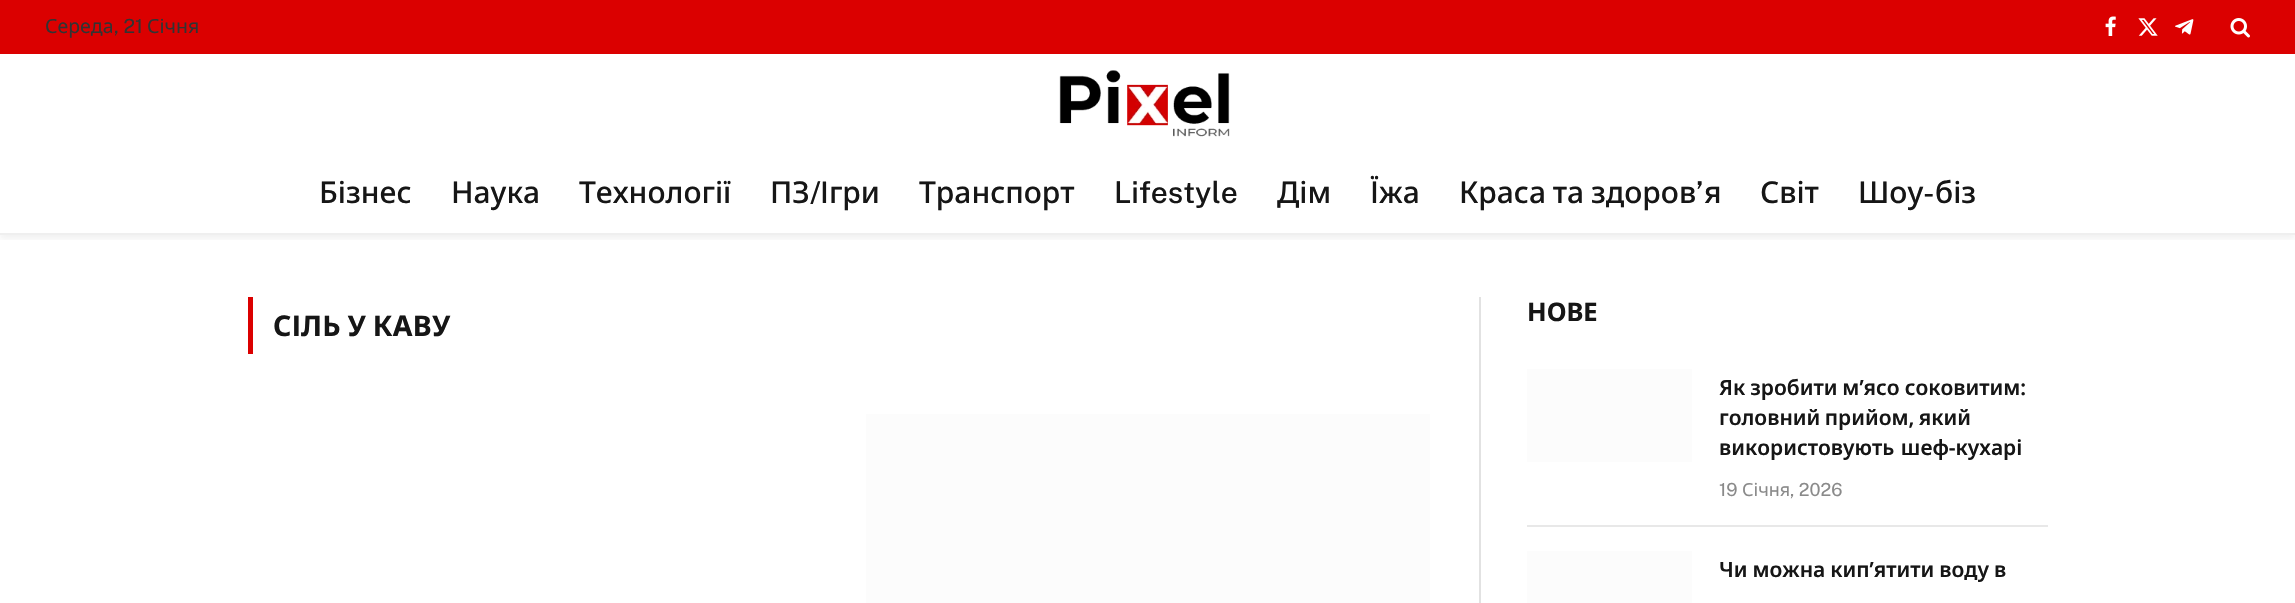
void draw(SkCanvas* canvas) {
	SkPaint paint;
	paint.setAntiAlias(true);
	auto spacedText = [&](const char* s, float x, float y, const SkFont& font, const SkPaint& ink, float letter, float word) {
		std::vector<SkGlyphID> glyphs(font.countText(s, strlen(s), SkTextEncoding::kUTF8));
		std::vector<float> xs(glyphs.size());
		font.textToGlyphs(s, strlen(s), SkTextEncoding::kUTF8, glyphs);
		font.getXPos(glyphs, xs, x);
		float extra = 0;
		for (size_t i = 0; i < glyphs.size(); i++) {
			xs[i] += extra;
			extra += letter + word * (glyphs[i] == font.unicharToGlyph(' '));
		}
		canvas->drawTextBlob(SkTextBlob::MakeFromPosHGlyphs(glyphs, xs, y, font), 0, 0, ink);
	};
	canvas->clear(0xffffffff);
	canvas->save();
	canvas->clipRect(SkRect::MakeXYWH(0, 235, 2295, 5));
	paint.setColor(0x0d000000);
	paint.setMaskFilter(SkMaskFilter::MakeBlur(kNormal_SkBlurStyle, 3));
	canvas->drawRect(SkRect::MakeXYWH(0, 5, 2295, 234), paint);
	paint.setMaskFilter(nullptr);
	canvas->restore();
	paint.setColor(0xffdb0000);
	canvas->drawRect(SkRect::MakeXYWH(0, 0, 2295, 54), paint);
	SkFont f1(fontMgr->matchFamilyStyle("Noto Sans", SkFontStyle::Normal()), 19.5);
	f1.setSubpixel(true);
	paint.setColor(0xff333333);
	canvas->drawString("Середа", 45, 33, f1, paint);
	SkFont f2(fontMgr->matchFamilyStyle("Public Sans", SkFontStyle::Normal()), 19.5);
	f2.setSubpixel(true);
	canvas->drawString(", 21", 114, 33, f2, paint);
	canvas->drawString("Січня", 147, 33, f1, paint);
	canvas->drawImageRect(SkImages::DeferredFromEncodedData(SkData::MakeFromFileName("img1.png")), SkRect::MakeXYWH(2105, 16, 11, 20), SkSamplingOptions());
	canvas->drawImageRect(SkImages::DeferredFromEncodedData(SkData::MakeFromFileName("img2.png")), SkRect::MakeXYWH(2138, 18, 20, 18), SkSamplingOptions());
	canvas->drawImageRect(SkImages::DeferredFromEncodedData(SkData::MakeFromFileName("img3.png")), SkRect::MakeXYWH(2175, 19, 19, 16), SkSamplingOptions());
	canvas->drawImageRect(SkImages::DeferredFromEncodedData(SkData::MakeFromFileName("img4.png")), SkRect::MakeXYWH(2230, 18, 20, 20), SkSamplingOptions());
	canvas->drawImageRect(SkImages::DeferredFromEncodedData(SkData::MakeFromFileName("img5.png")), SkRect::MakeXYWH(1059, 70, 171, 67), SkSamplingOptions());
	paint.setColor(0xffefefef);
	canvas->drawRect(SkRect::MakeXYWH(0, 233, 2295, 2), paint);
	SkFont f3(fontMgr->matchFamilyStyle("Noto Sans", SkFontStyle(500, SkFontStyle::kNormal_Width, SkFontStyle::kUpright_Slant)), 30);
	f3.setSubpixel(true);
	paint.setColor(0xff161616);
	canvas->drawString("Бізнес", 319, 203, f3, paint);
	canvas->drawString("Наука", 451, 203, f3, paint);
	canvas->drawString("Технології", 579, 203, f3, paint);
	canvas->drawString("ПЗ", 770, 203, f3, paint);
	SkFont f4(fontMgr->matchFamilyStyle("Public Sans", SkFontStyle(100, SkFontStyle::kNormal_Width, SkFontStyle::kUpright_Slant)), 30);
	f4.setSubpixel(true);
	canvas->drawString("/", 810, 203, f4, paint);
	canvas->drawString("Ігри", 820, 203, f3, paint);
	canvas->drawString("Транспорт", 919, 203, f3, paint);
	canvas->drawString("Lifestyle", 1114, 203, f4, paint);
	canvas->drawString("Дім", 1277, 203, f3, paint);
	canvas->drawString("Їжа", 1370, 203, f3, paint);
	spacedText("Краса та здоров", 1459, 203, f3, paint, 0, -1);
	canvas->drawString("’", 1696, 203, f4, paint);
	canvas->drawString("я", 1704, 203, f3, paint);
	canvas->drawString("Світ", 1760, 203, f3, paint);
	canvas->drawString("Шоу", 1858, 203, f3, paint);
	canvas->drawString("-", 1923, 203, f4, paint);
	canvas->drawString("біз", 1935, 203, f3, paint);
	paint.setColor(0xffdb0000);
	canvas->drawRect(SkRect::MakeXYWH(248, 297, 5, 57), paint);
	SkFont f5(fontMgr->matchFamilyStyle("Noto Sans", SkFontStyle::Bold()), 28.5);
	f5.setSubpixel(true);
	paint.setColor(0xff161616);
	spacedText("СІЛЬ У КАВУ", 273, 336, f5, paint, 0.25, -1);
	paint.setColor(0xfffcfcfc);
	canvas->drawRect(SkRect::MakeXYWH(866, 414, 564, 189), paint);
	paint.setColor(0xffe2e2e2);
	canvas->drawRect(SkRect::MakeXYWH(1479, 297, 2, 306), paint);
	SkFont f6(fontMgr->matchFamilyStyle("Noto Sans", SkFontStyle::Bold()), 25.5);
	f6.setSubpixel(true);
	paint.setColor(0xff161616);
	canvas->drawString("НОВЕ", 1527, 321, f6, paint);
	paint.setColor(0xfffcfcfc);
	canvas->drawRect(SkRect::MakeXYWH(1527, 369, 165, 93), paint);
	SkFont f7(fontMgr->matchFamilyStyle("Noto Sans", SkFontStyle(600, SkFontStyle::kNormal_Width, SkFontStyle::kUpright_Slant)), 21);
	f7.setSubpixel(true);
	paint.setColor(0xff161616);
	spacedText("Як зробити м’ясо соковитим:", 1719, 395, f7, paint, 0, -0.5);
	spacedText("головний прийом, який", 1719, 425, f7, paint, 0, -1);
	spacedText("використовують шеф-кухарі", 1719, 455, f7, paint, 0, 1);
	SkFont f8(fontMgr->matchFamilyStyle("Public Sans", SkFontStyle::Normal()), 18);
	f8.setSubpixel(true);
	paint.setColor(0xff8a8a8a);
	canvas->drawString("19", 1719, 496, f8, paint);
	SkFont f9(fontMgr->matchFamilyStyle("Noto Sans", SkFontStyle::Normal()), 18);
	f9.setSubpixel(true);
	canvas->drawString("Січня", 1742, 496, f9, paint);
	canvas->drawString(", 2026", 1790, 496, f8, paint);
	paint.setColor(0xffe8e8e8);
	canvas->drawRect(SkRect::MakeXYWH(1527, 525, 521, 2), paint);
	paint.setColor(0xfffcfcfc);
	canvas->drawRect(SkRect::MakeXYWH(1527, 551, 165, 52), paint);
	paint.setColor(0xff161616);
	spacedText("Чи можна кип’ятити воду в", 1719, 577, f7, paint, 0, -0.5);
}
